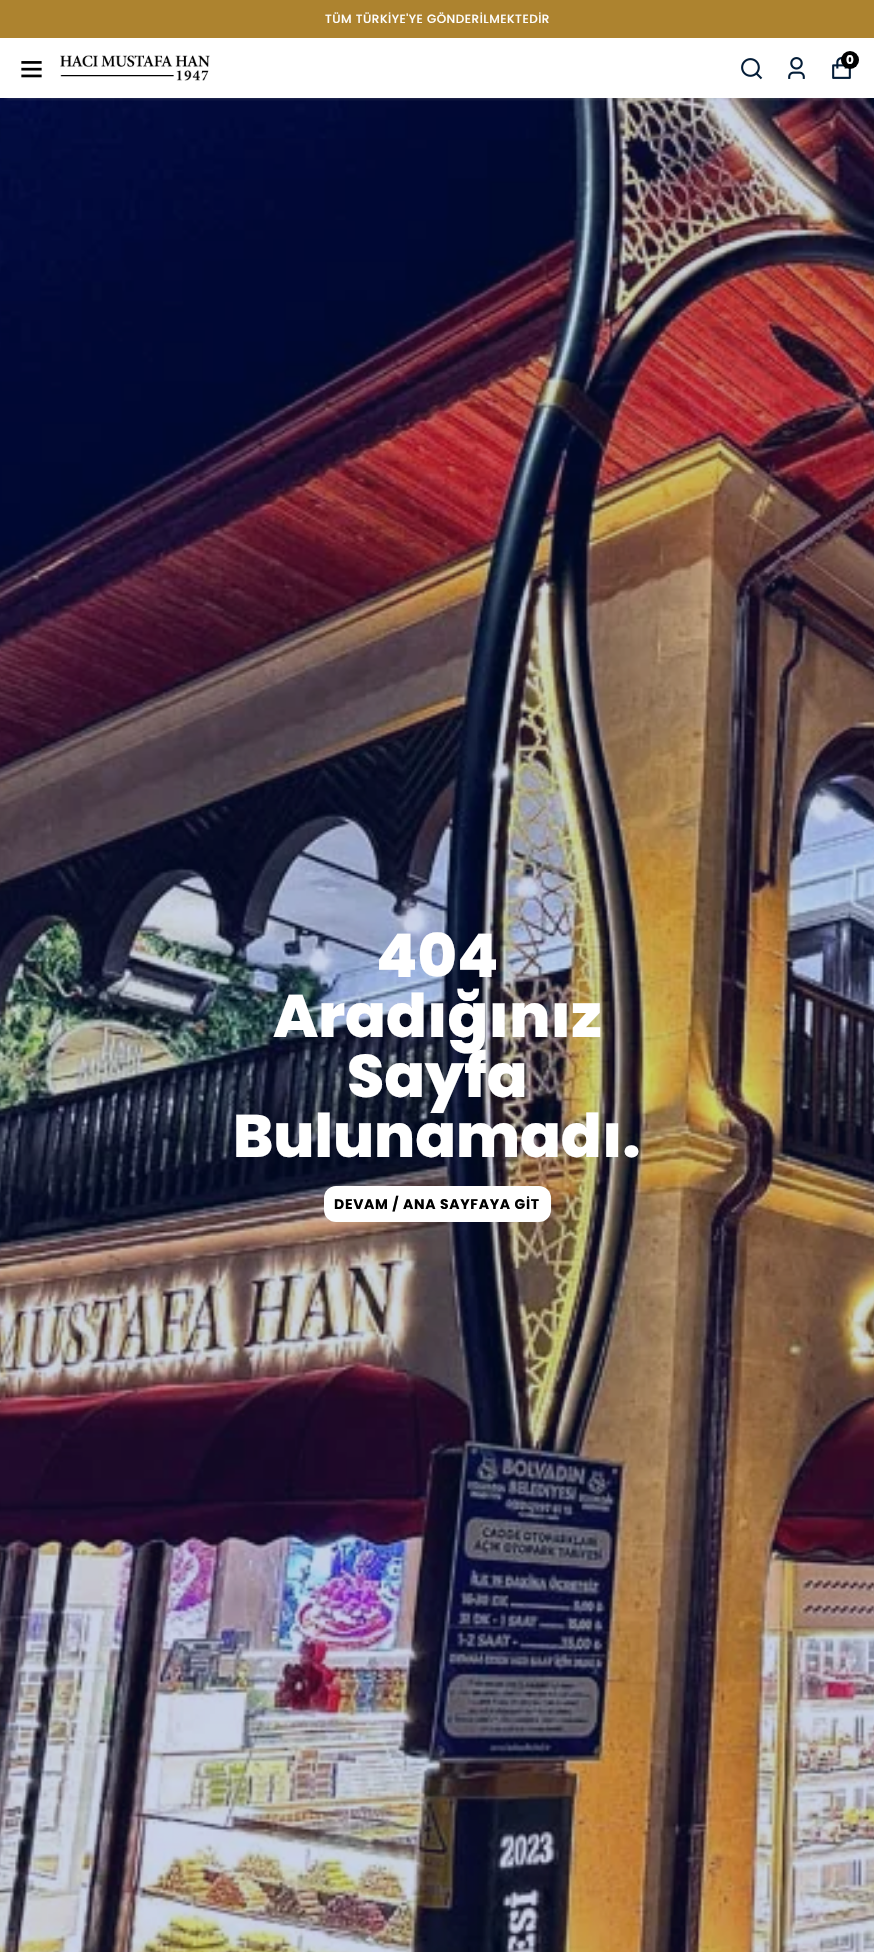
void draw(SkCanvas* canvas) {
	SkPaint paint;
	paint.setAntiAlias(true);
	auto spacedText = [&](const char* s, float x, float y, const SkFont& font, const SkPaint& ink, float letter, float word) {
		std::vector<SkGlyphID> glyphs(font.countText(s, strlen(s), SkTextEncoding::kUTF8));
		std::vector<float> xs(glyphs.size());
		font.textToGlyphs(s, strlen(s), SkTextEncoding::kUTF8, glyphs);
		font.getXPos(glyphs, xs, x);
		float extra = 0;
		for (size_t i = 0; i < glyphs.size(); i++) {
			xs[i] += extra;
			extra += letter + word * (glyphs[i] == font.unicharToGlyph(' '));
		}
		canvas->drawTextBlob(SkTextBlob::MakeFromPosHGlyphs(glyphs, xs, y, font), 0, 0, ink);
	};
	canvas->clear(0xffffffff);
	paint.setColor(0xffad832f);
	canvas->drawRect(SkRect::MakeXYWH(0, 0, 874, 38), paint);
	SkFont f1(fontMgr->matchFamilyStyle("Poppins", SkFontStyle(500, SkFontStyle::kNormal_Width, SkFontStyle::kUpright_Slant)), 12);
	f1.setSubpixel(true);
	paint.setColor(0xffffffff);
	spacedText("TÜM TÜRKİYE'YE GÖNDERİLMEKTEDİR", 325, 23, f1, paint, 0.5, 0);
	canvas->drawImageRect(SkImages::DeferredFromEncodedData(SkData::MakeFromFileName("img6.png")), SkRect::MakeXYWH(0, 98, 874, 1854), SkSamplingOptions());
	canvas->save();
	canvas->clipRect(SkRect::MakeXYWH(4, 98, 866, 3));
	paint.setColor(0xff989898);
	paint.setMaskFilter(SkMaskFilter::MakeBlur(kNormal_SkBlurStyle, 2.5));
	canvas->drawRect(SkRect::MakeXYWH(7, 50, 860, 46), paint);
	paint.setMaskFilter(nullptr);
	canvas->restore();
	canvas->drawImageRect(SkImages::DeferredFromEncodedData(SkData::MakeFromFileName("img1.png")), SkRect::MakeXYWH(60, 55, 150, 26), SkSamplingOptions());
	canvas->drawImageRect(SkImages::DeferredFromEncodedData(SkData::MakeFromFileName("img2.png")), SkRect::MakeXYWH(741, 58, 22, 22), SkSamplingOptions());
	canvas->drawImageRect(SkImages::DeferredFromEncodedData(SkData::MakeFromFileName("img3.png")), SkRect::MakeXYWH(788, 57, 17, 22), SkSamplingOptions());
	canvas->drawImageRect(SkImages::DeferredFromEncodedData(SkData::MakeFromFileName("img4.png")), SkRect::MakeXYWH(832, 57, 19, 22), SkSamplingOptions());
	paint.setColor(0xff000000);
	canvas->drawCircle(850, 60, 9, paint);
	SkFont f2(fontMgr->matchFamilyStyle("Poppins", SkFontStyle::Bold()), 12);
	f2.setSubpixel(true);
	paint.setColor(0xffffffff);
	canvas->drawString("0", 846, 64, f2, paint);
	canvas->drawImageRect(SkImages::DeferredFromEncodedData(SkData::MakeFromFileName("img5.png")), SkRect::MakeXYWH(21, 61, 21, 17), SkSamplingOptions());
	SkFont f3(fontMgr->matchFamilyStyle("Poppins", SkFontStyle(800, SkFontStyle::kNormal_Width, SkFontStyle::kUpright_Slant)), 60);
	f3.setSubpixel(true);
	canvas->drawString("404", 376, 977, f3, paint);
	canvas->drawString("Aradığınız", 273, 1037, f3, paint);
	canvas->drawString("Sayfa", 347, 1097, f3, paint);
	canvas->drawString("Bulunamadı.", 233, 1157, f3, paint);
	canvas->drawRoundRect(SkRect::MakeXYWH(324, 1186, 227, 36), 12, 12, paint);
	SkFont f4(fontMgr->matchFamilyStyle("Poppins", SkFontStyle::Bold()), 14);
	f4.setSubpixel(true);
	paint.setColor(0xff000000);
	spacedText("DEVAM / ANA SAYFAYA GİT", 334, 1209, f4, paint, 0.7, 0);
}
